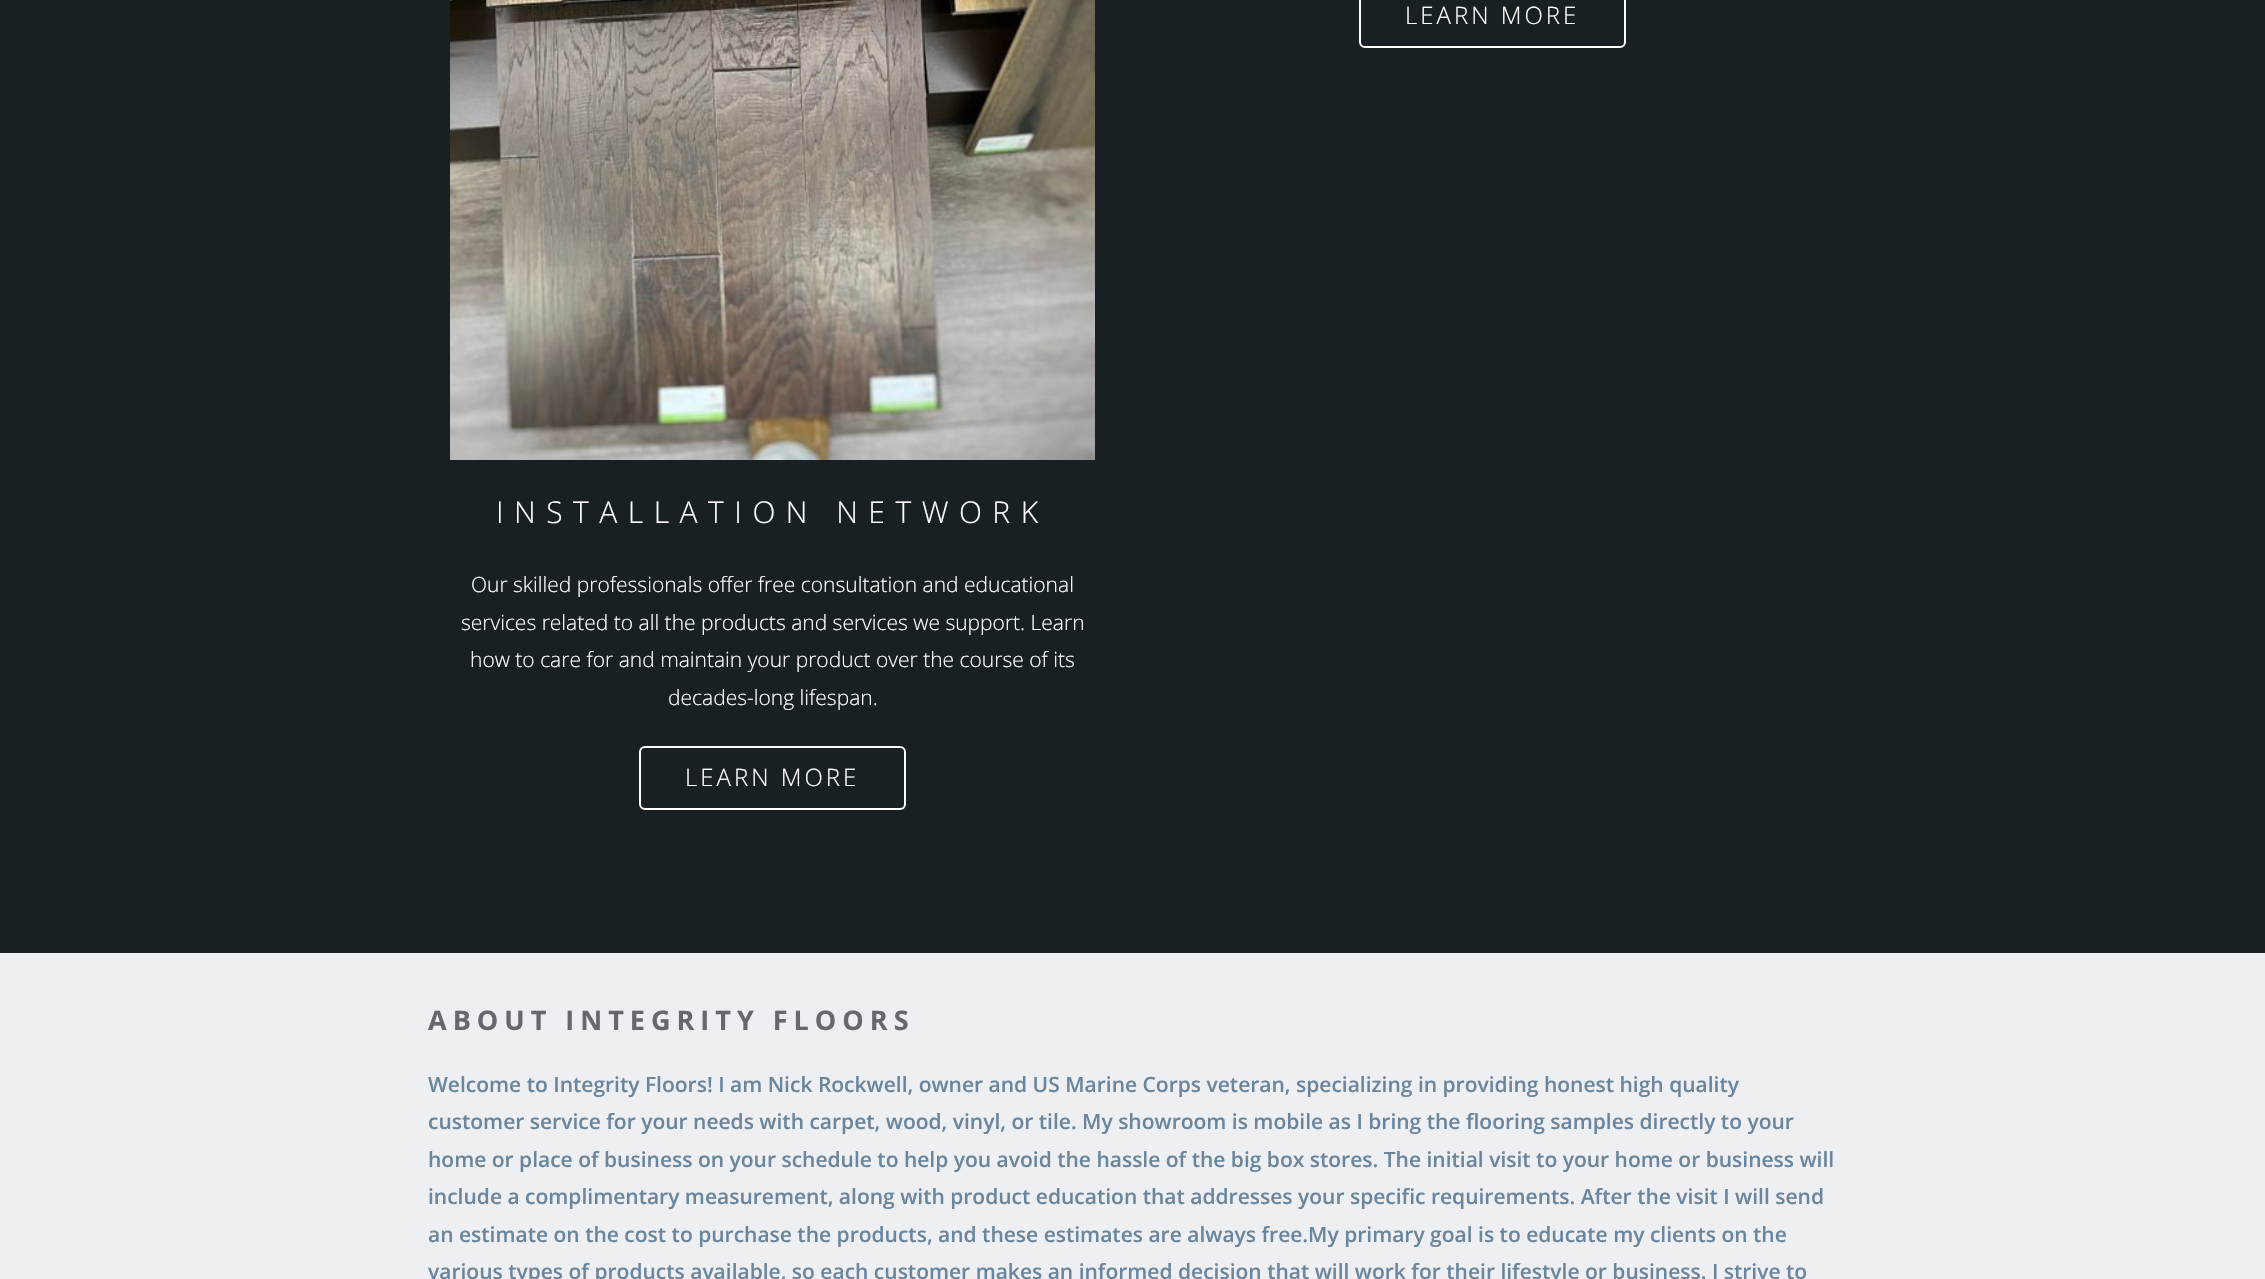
void draw(SkCanvas* canvas) {
	SkPaint paint;
	paint.setAntiAlias(true);
	auto spacedText = [&](const char* s, float x, float y, const SkFont& font, const SkPaint& ink, float letter, float word) {
		std::vector<SkGlyphID> glyphs(font.countText(s, strlen(s), SkTextEncoding::kUTF8));
		std::vector<float> xs(glyphs.size());
		font.textToGlyphs(s, strlen(s), SkTextEncoding::kUTF8, glyphs);
		font.getXPos(glyphs, xs, x);
		float extra = 0;
		for (size_t i = 0; i < glyphs.size(); i++) {
			xs[i] += extra;
			extra += letter + word * (glyphs[i] == font.unicharToGlyph(' '));
		}
		canvas->drawTextBlob(SkTextBlob::MakeFromPosHGlyphs(glyphs, xs, y, font), 0, 0, ink);
	};
	canvas->clear(0xffedeff2);
	paint.setColor(0xff192024);
	canvas->drawRect(SkRect::MakeXYWH(0, 0, 2265, 953), paint);
	paint.setStroke(true);
	paint.setStrokeWidth(2);
	paint.setColor(0xffffffff);
	canvas->drawRoundRect(SkRect::MakeXYWH(1360, -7, 265, 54), 5, 5, paint);
	SkFont f1(fontMgr->matchFamilyStyle("Open Sans", SkFontStyle(300, SkFontStyle::kNormal_Width, SkFontStyle::kUpright_Slant)), 24);
	f1.setSubpixel(true);
	paint.setStroke(false);
	spacedText("LEARN MORE", 1405, 24, f1, paint, 3, 0);
	canvas->drawImageRect(SkImages::DeferredFromEncodedData(SkData::MakeFromFileName("img1.png")), SkRect::MakeXYWH(450, 0, 645, 460), SkSamplingOptions());
	SkFont f2(fontMgr->matchFamilyStyle("Open Sans", SkFontStyle(300, SkFontStyle::kNormal_Width, SkFontStyle::kUpright_Slant)), 30);
	f2.setSubpixel(true);
	spacedText("INSTALLATION NETWORK", 496, 523, f2, paint, 10.5, 0);
	SkFont f3(fontMgr->matchFamilyStyle("Open Sans", SkFontStyle(300, SkFontStyle::kNormal_Width, SkFontStyle::kUpright_Slant)), 21);
	f3.setSubpixel(true);
	canvas->drawString("Our skilled professionals offer free consultation and educational", 471, 592, f3, paint);
	canvas->drawString("services related to all the products and services we support. Learn", 461, 630, f3, paint);
	canvas->drawString("how to care for and maintain your product over the course of its", 470, 667, f3, paint);
	canvas->drawString("decades-long lifespan.", 668, 705, f3, paint);
	paint.setStroke(true);
	canvas->drawRoundRect(SkRect::MakeXYWH(640, 747, 265, 62), 5, 5, paint);
	paint.setStroke(false);
	spacedText("LEARN MORE", 685, 786, f1, paint, 3, 0);
	SkFont f4(fontMgr->matchFamilyStyle("Open Sans", SkFontStyle::Bold()), 27);
	f4.setSubpixel(true);
	paint.setColor(0xff676770);
	spacedText("ABOUT INTEGRITY FLOORS", 428, 1030, f4, paint, 6, 0);
	SkFont f5(fontMgr->matchFamilyStyle("Open Sans", SkFontStyle(600, SkFontStyle::kNormal_Width, SkFontStyle::kUpright_Slant)), 21);
	f5.setSubpixel(true);
	paint.setColor(0xff6a859c);
	canvas->drawString("Welcome to Integrity Floors! I am Nick Rockwell, owner and US Marine Corps veteran, specializing in providing honest high quality", 428, 1092, f5, paint);
	canvas->drawString("customer service for your needs with carpet, wood, vinyl, or tile. My showroom is mobile as I bring the flooring samples directly to your", 428, 1129, f5, paint);
	canvas->drawString("home or place of business on your schedule to help you avoid the hassle of the big box stores. The initial visit to your home or business will", 428, 1167, f5, paint);
	canvas->drawString("include a complimentary measurement, along with product education that addresses your specific requirements. After the visit I will send", 428, 1204, f5, paint);
	canvas->drawString("an estimate on the cost to purchase the products, and these estimates are always free.My primary goal is to educate my clients on the", 428, 1242, f5, paint);
	canvas->drawString("various types of products available, so each customer makes an informed decision that will work for their lifestyle or business. I strive to", 428, 1279, f5, paint);
}
